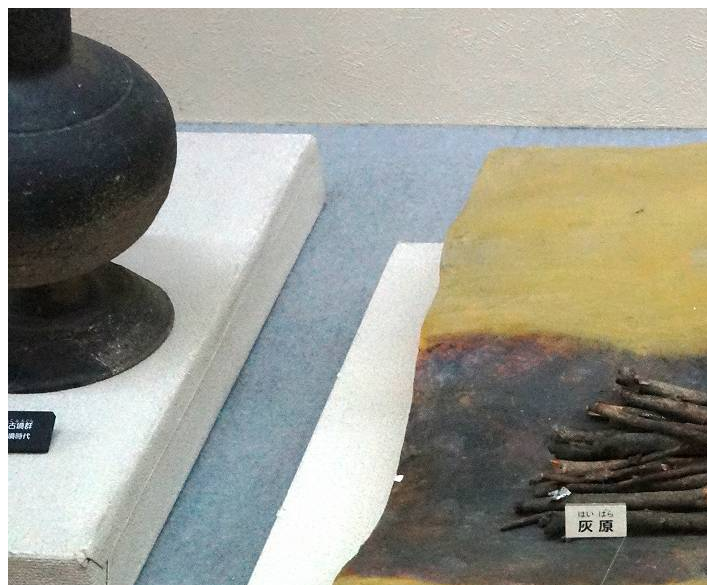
void draw(SkCanvas* canvas) {
	SkPaint paint;
	paint.setAntiAlias(true);
	canvas->clear(0xffffffff);
	canvas->drawImageRect(SkImages::DeferredFromEncodedData(SkData::MakeFromFileName("img1.png")), SkRect::MakeXYWH(8, 8, 699, 577), SkSamplingOptions());
}
